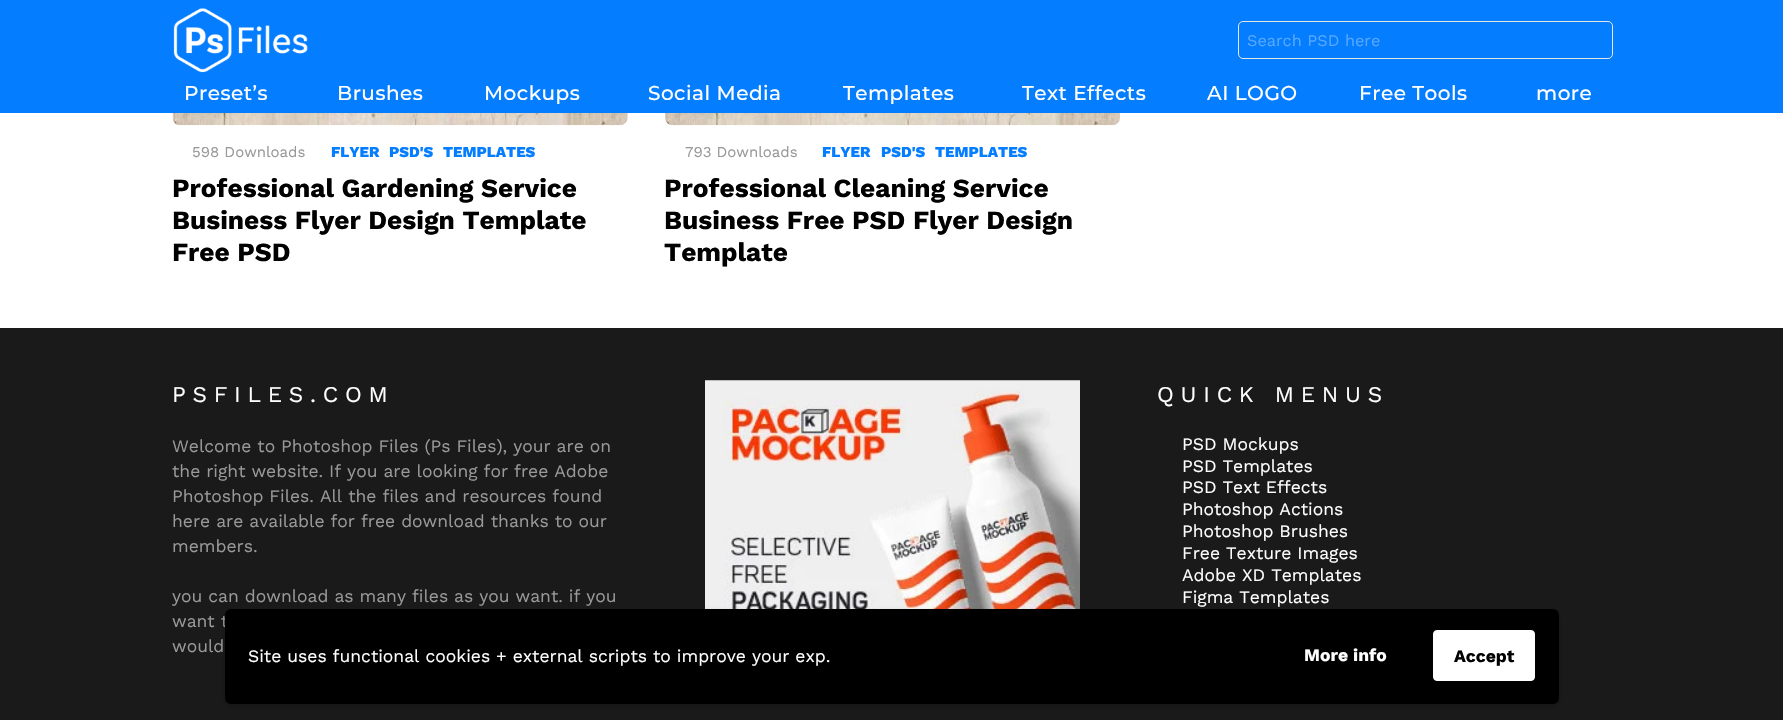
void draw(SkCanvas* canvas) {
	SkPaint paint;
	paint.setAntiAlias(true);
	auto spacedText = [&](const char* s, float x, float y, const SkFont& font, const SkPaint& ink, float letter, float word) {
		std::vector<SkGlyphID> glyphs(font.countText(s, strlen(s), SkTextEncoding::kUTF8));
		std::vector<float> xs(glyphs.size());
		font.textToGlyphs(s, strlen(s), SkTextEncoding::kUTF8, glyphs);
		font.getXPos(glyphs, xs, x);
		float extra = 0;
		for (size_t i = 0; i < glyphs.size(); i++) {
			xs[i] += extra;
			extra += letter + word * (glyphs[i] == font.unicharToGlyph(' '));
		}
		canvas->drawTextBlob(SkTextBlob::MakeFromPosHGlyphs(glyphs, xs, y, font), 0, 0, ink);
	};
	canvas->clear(0xffffffff);
	paint.setColor(0xffe6e6e6);
	canvas->drawRoundRect(SkRect::MakeXYWH(173, -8, 455, 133), 8, 8, paint);
	paint.setColor(0xff057dff);
	canvas->drawRect(SkRect::MakeXYWH(0, 0, 1783, 113), paint);
	canvas->drawImageRect(SkImages::DeferredFromEncodedData(SkData::MakeFromFileName("img1.png")), SkRect::MakeXYWH(173, 8, 135, 65), SkSamplingOptions());
	paint.setStroke(true);
	paint.setStrokeWidth(1);
	paint.setColor(0xffe6e6e6);
	canvas->drawRoundRect(SkRect::MakeXYWH(1238.5, 21.5, 374, 37), 4.5, 4.5, paint);
	SkFont f1(fontMgr->matchFamilyStyle("Work Sans", SkFontStyle::Normal()), 16.25);
	f1.setSubpixel(true);
	paint.setStroke(false);
	paint.setColor(0xff58a8ff);
	canvas->drawString("Search PSD here", 1247, 46, f1, paint);
	SkFont f2(fontMgr->matchFamilyStyle("Montserrat", SkFontStyle(500, SkFontStyle::kNormal_Width, SkFontStyle::kUpright_Slant)), 20);
	f2.setSubpixel(true);
	paint.setColor(0xffffffff);
	spacedText("Preset’s", 184, 100, f2, paint, 0.5, 0);
	spacedText("Brushes", 337, 100, f2, paint, 0.5, 0);
	spacedText("Mockups", 484, 100, f2, paint, 0.5, 0);
	spacedText("Social Media", 648, 100, f2, paint, 0.5, 0);
	spacedText("Templates", 843, 100, f2, paint, 0.5, 0);
	spacedText("Text Effects", 1022, 100, f2, paint, 0.5, 0);
	spacedText("AI LOGO", 1207, 100, f2, paint, 0.5, 0);
	spacedText("Free Tools", 1359, 100, f2, paint, 0.5, 0);
	spacedText("more", 1536, 100, f2, paint, 0.5, 0);
	canvas->drawImageRect(SkImages::DeferredFromEncodedData(SkData::MakeFromFileName("img2.png")), SkRect::MakeXYWH(172, 113, 456, 13), SkSamplingOptions());
	SkFont f3(fontMgr->matchFamilyStyle("Work Sans", SkFontStyle::Normal()), 15);
	f3.setSubpixel(true);
	paint.setColor(0xff999999);
	canvas->drawString("598 Downloads", 192, 157, f3, paint);
	SkFont f4(fontMgr->matchFamilyStyle("Work Sans", SkFontStyle(800, SkFontStyle::kNormal_Width, SkFontStyle::kUpright_Slant)), 15);
	f4.setSubpixel(true);
	paint.setColor(0xff057dff);
	canvas->drawString("FLYER", 331, 157, f4, paint);
	canvas->drawString("PSD'S", 389, 157, f4, paint);
	canvas->drawString("TEMPLATES", 443, 157, f4, paint);
	SkFont f5(fontMgr->matchFamilyStyle("Work Sans", SkFontStyle::Bold()), 26.25);
	f5.setSubpixel(true);
	paint.setColor(0xff000000);
	canvas->drawString("Professional Gardening Service", 172, 197, f5, paint);
	canvas->drawString("Business Flyer Design Template", 172, 229, f5, paint);
	canvas->drawString("Free PSD", 172, 261, f5, paint);
	canvas->drawImageRect(SkImages::DeferredFromEncodedData(SkData::MakeFromFileName("img3.png")), SkRect::MakeXYWH(665, 113, 455, 13), SkSamplingOptions());
	paint.setColor(0xff999999);
	canvas->drawString("793 Downloads", 685, 157, f3, paint);
	paint.setColor(0xff057dff);
	canvas->drawString("FLYER", 822, 157, f4, paint);
	canvas->drawString("PSD'S", 881, 157, f4, paint);
	canvas->drawString("TEMPLATES", 935, 157, f4, paint);
	paint.setColor(0xff000000);
	canvas->drawString("Professional Cleaning Service", 664, 197, f5, paint);
	canvas->drawString("Business Free PSD Flyer Design", 664, 229, f5, paint);
	canvas->drawString("Template", 664, 261, f5, paint);
	paint.setColor(0xff1a1a1a);
	canvas->drawRect(SkRect::MakeXYWH(0, 328, 1783, 392), paint);
	SkFont f6(fontMgr->matchFamilyStyle("Work Sans", SkFontStyle::Normal()), 22.5);
	f6.setSubpixel(true);
	paint.setColor(0xffffffff);
	spacedText("PSFILES.COM", 172, 402, f6, paint, 6.75, 0);
	SkFont f7(fontMgr->matchFamilyStyle("Work Sans", SkFontStyle::Normal()), 17.5);
	f7.setSubpixel(true);
	paint.setColor(0xff999999);
	canvas->drawString("Welcome to Photoshop Files (Ps Files), your are on", 172, 452, f7, paint);
	canvas->drawString("the right website. If you are looking for free Adobe", 172, 477, f7, paint);
	canvas->drawString("Photoshop Files. All the files and resources found", 172, 502, f7, paint);
	canvas->drawString("here are available for free download thanks to our", 172, 527, f7, paint);
	canvas->drawString("members.", 172, 552, f7, paint);
	canvas->drawString("you can download as many files as you want. if you", 172, 602, f7, paint);
	canvas->drawString("want t", 172, 627, f7, paint);
	canvas->drawString("would", 172, 652, f7, paint);
	canvas->drawImageRect(SkImages::DeferredFromEncodedData(SkData::MakeFromFileName("img4.png")), SkRect::MakeXYWH(705, 380, 375, 229), SkSamplingOptions());
	paint.setColor(0xffffffff);
	spacedText("QUICK MENUS", 1157, 402, f6, paint, 6.75, 0);
	canvas->drawString("PSD Mockups", 1182, 450, f7, paint);
	canvas->drawString("PSD Templates", 1182, 472, f7, paint);
	canvas->drawString("PSD Text Effects", 1182, 493, f7, paint);
	canvas->drawString("Photoshop Actions", 1182, 515, f7, paint);
	canvas->drawString("Photoshop Brushes", 1182, 537, f7, paint);
	canvas->drawString("Free Texture Images", 1182, 559, f7, paint);
	canvas->drawString("Adobe XD Templates", 1182, 581, f7, paint);
	canvas->drawString("Figma Templates", 1182, 603, f7, paint);
	paint.setColor(0x33000000);
	paint.setMaskFilter(SkMaskFilter::MakeBlur(kNormal_SkBlurStyle, 2.5));
	canvas->drawRoundRect(SkRect::MakeXYWH(225, 611, 1334, 95), 6, 6, paint);
	paint.setMaskFilter(nullptr);
	paint.setColor(0xff000000);
	canvas->drawRoundRect(SkRect::MakeXYWH(225, 609, 1334, 95), 6, 6, paint);
	paint.setColor(0xffffffff);
	canvas->drawString("Site uses functional cookies + external scripts to improve your exp.", 248, 662, f7, paint);
	SkFont f8(fontMgr->matchFamilyStyle("Work Sans", SkFontStyle::Bold()), 17.5);
	f8.setSubpixel(true);
	canvas->drawString("More info", 1304, 661, f8, paint);
	canvas->drawRoundRect(SkRect::MakeXYWH(1433.5, 630.5, 101, 50), 3.5, 3.5, paint);
	paint.setStroke(true);
	canvas->drawRoundRect(SkRect::MakeXYWH(1433.5, 630.5, 101, 50), 3.5, 3.5, paint);
	paint.setStroke(false);
	paint.setColor(0xff000000);
	canvas->drawString("Accept", 1454, 662, f8, paint);
}
